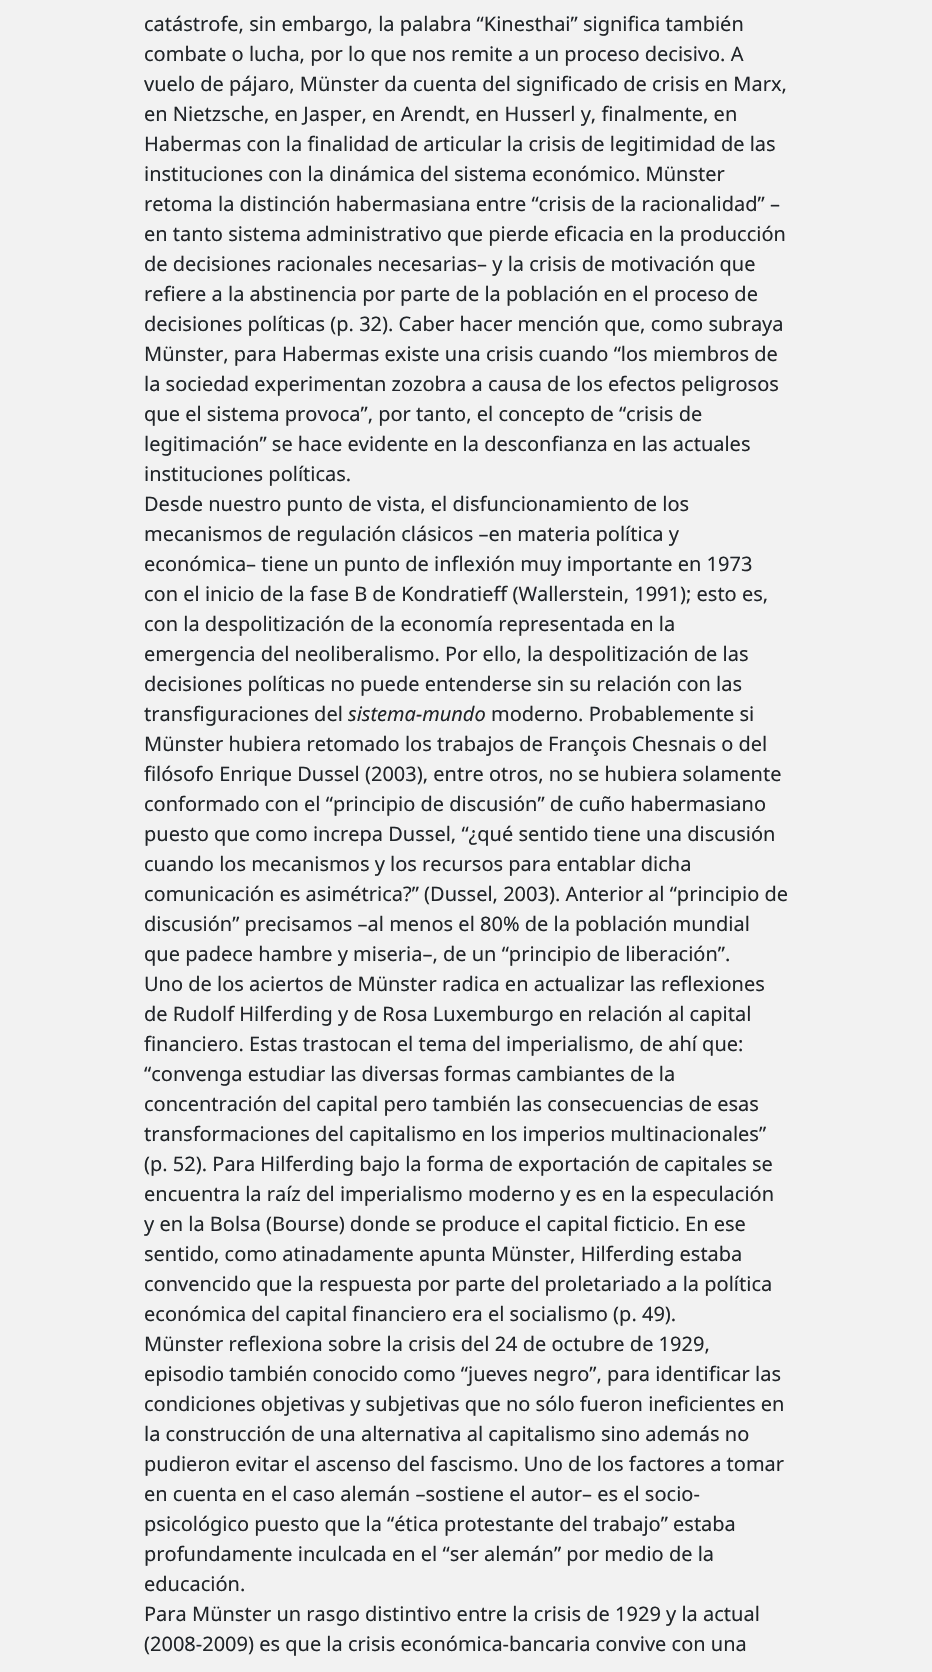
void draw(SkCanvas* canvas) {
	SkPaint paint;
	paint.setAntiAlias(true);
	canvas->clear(0xfff2f2f2);
	SkFont f1(fontMgr->matchFamilyStyle("Noto Sans", SkFontStyle::Normal()), 20);
	f1.setSubpixel(true);
	paint.setColor(0xff212529);
	canvas->drawString("catástrofe, sin embargo, la palabra “Kinesthai” significa también", 144, 31, f1, paint);
	canvas->drawString("combate o lucha, por lo que nos remite a un proceso decisivo. A", 144, 61, f1, paint);
	canvas->drawString("vuelo de pájaro, Münster da cuenta del significado de crisis en Marx,", 144, 91, f1, paint);
	canvas->drawString("en Nietzsche, en Jasper, en Arendt, en Husserl y, finalmente, en", 144, 121, f1, paint);
	canvas->drawString("Habermas con la finalidad de articular la crisis de legitimidad de las", 144, 151, f1, paint);
	canvas->drawString("instituciones con la dinámica del sistema económico. Münster", 144, 181, f1, paint);
	canvas->drawString("retoma la distinción habermasiana entre “crisis de la racionalidad” –", 144, 211, f1, paint);
	canvas->drawString("en tanto sistema administrativo que pierde eficacia en la producción", 144, 241, f1, paint);
	canvas->drawString("de decisiones racionales necesarias– y la crisis de motivación que", 144, 271, f1, paint);
	canvas->drawString("refiere a la abstinencia por parte de la población en el proceso de", 144, 301, f1, paint);
	canvas->drawString("decisiones políticas (p. 32). Caber hacer mención que, como subraya", 144, 331, f1, paint);
	canvas->drawString("Münster, para Habermas existe una crisis cuando “los miembros de", 144, 361, f1, paint);
	canvas->drawString("la sociedad experimentan zozobra a causa de los efectos peligrosos", 144, 391, f1, paint);
	canvas->drawString("que el sistema provoca”, por tanto, el concepto de “crisis de", 144, 421, f1, paint);
	canvas->drawString("legitimación” se hace evidente en la desconfianza en las actuales", 144, 451, f1, paint);
	canvas->drawString("instituciones políticas.", 144, 481, f1, paint);
	canvas->drawString("Desde nuestro punto de vista, el disfuncionamiento de los", 144, 511, f1, paint);
	canvas->drawString("mecanismos de regulación clásicos –en materia política y", 144, 541, f1, paint);
	canvas->drawString("económica– tiene un punto de inflexión muy importante en 1973", 144, 571, f1, paint);
	canvas->drawString("con el inicio de la fase B de Kondratieff (Wallerstein, 1991); esto es,", 144, 601, f1, paint);
	canvas->drawString("con la despolitización de la economía representada en la", 144, 631, f1, paint);
	canvas->drawString("emergencia del neoliberalismo. Por ello, la despolitización de las", 144, 661, f1, paint);
	canvas->drawString("decisiones políticas no puede entenderse sin su relación con las", 144, 691, f1, paint);
	canvas->drawString("transfiguraciones del", 144, 721, f1, paint);
	SkFont f2(fontMgr->matchFamilyStyle("Noto Sans", SkFontStyle::Italic()), 20);
	f2.setSubpixel(true);
	canvas->drawString("sistema-mundo", 348, 721, f2, paint);
	canvas->drawString("moderno. Probablemente si", 491, 721, f1, paint);
	canvas->drawString("Münster hubiera retomado los trabajos de François Chesnais o del", 144, 751, f1, paint);
	canvas->drawString("filósofo Enrique Dussel (2003), entre otros, no se hubiera solamente", 144, 781, f1, paint);
	canvas->drawString("conformado con el “principio de discusión” de cuño habermasiano", 144, 811, f1, paint);
	canvas->drawString("puesto que como increpa Dussel, “¿qué sentido tiene una discusión", 144, 841, f1, paint);
	canvas->drawString("cuando los mecanismos y los recursos para entablar dicha", 144, 871, f1, paint);
	canvas->drawString("comunicación es asimétrica?” (Dussel, 2003). Anterior al “principio de", 144, 901, f1, paint);
	canvas->drawString("discusión” precisamos –al menos el 80% de la población mundial", 144, 931, f1, paint);
	canvas->drawString("que padece hambre y miseria–, de un “principio de liberación”.", 144, 961, f1, paint);
	canvas->drawString("Uno de los aciertos de Münster radica en actualizar las reflexiones", 144, 991, f1, paint);
	canvas->drawString("de Rudolf Hilferding y de Rosa Luxemburgo en relación al capital", 144, 1021, f1, paint);
	canvas->drawString("financiero. Estas trastocan el tema del imperialismo, de ahí que:", 144, 1051, f1, paint);
	canvas->drawString("“convenga estudiar las diversas formas cambiantes de la", 144, 1081, f1, paint);
	canvas->drawString("concentración del capital pero también las consecuencias de esas", 144, 1111, f1, paint);
	canvas->drawString("transformaciones del capitalismo en los imperios multinacionales”", 144, 1141, f1, paint);
	canvas->drawString("(p. 52). Para Hilferding bajo la forma de exportación de capitales se", 144, 1171, f1, paint);
	canvas->drawString("encuentra la raíz del imperialismo moderno y es en la especulación", 144, 1201, f1, paint);
	canvas->drawString("y en la Bolsa (Bourse) donde se produce el capital ficticio. En ese", 144, 1231, f1, paint);
	canvas->drawString("sentido, como atinadamente apunta Münster, Hilferding estaba", 144, 1261, f1, paint);
	canvas->drawString("convencido que la respuesta por parte del proletariado a la política", 144, 1291, f1, paint);
	canvas->drawString("económica del capital financiero era el socialismo (p. 49).", 144, 1321, f1, paint);
	canvas->drawString("Münster reflexiona sobre la crisis del 24 de octubre de 1929,", 144, 1351, f1, paint);
	canvas->drawString("episodio también conocido como “jueves negro”, para identificar las", 144, 1381, f1, paint);
	canvas->drawString("condiciones objetivas y subjetivas que no sólo fueron ineficientes en", 144, 1411, f1, paint);
	canvas->drawString("la construcción de una alternativa al capitalismo sino además no", 144, 1441, f1, paint);
	canvas->drawString("pudieron evitar el ascenso del fascismo. Uno de los factores a tomar", 144, 1471, f1, paint);
	canvas->drawString("en cuenta en el caso alemán –sostiene el autor– es el socio-", 144, 1501, f1, paint);
	canvas->drawString("psicológico puesto que la “ética protestante del trabajo” estaba", 144, 1531, f1, paint);
	canvas->drawString("profundamente inculcada en el “ser alemán” por medio de la", 144, 1561, f1, paint);
	canvas->drawString("educación.", 144, 1591, f1, paint);
	canvas->drawString("Para Münster un rasgo distintivo entre la crisis de 1929 y la actual", 144, 1621, f1, paint);
	canvas->drawString("(2008-2009) es que la crisis económica-bancaria convive con una", 144, 1651, f1, paint);
}
